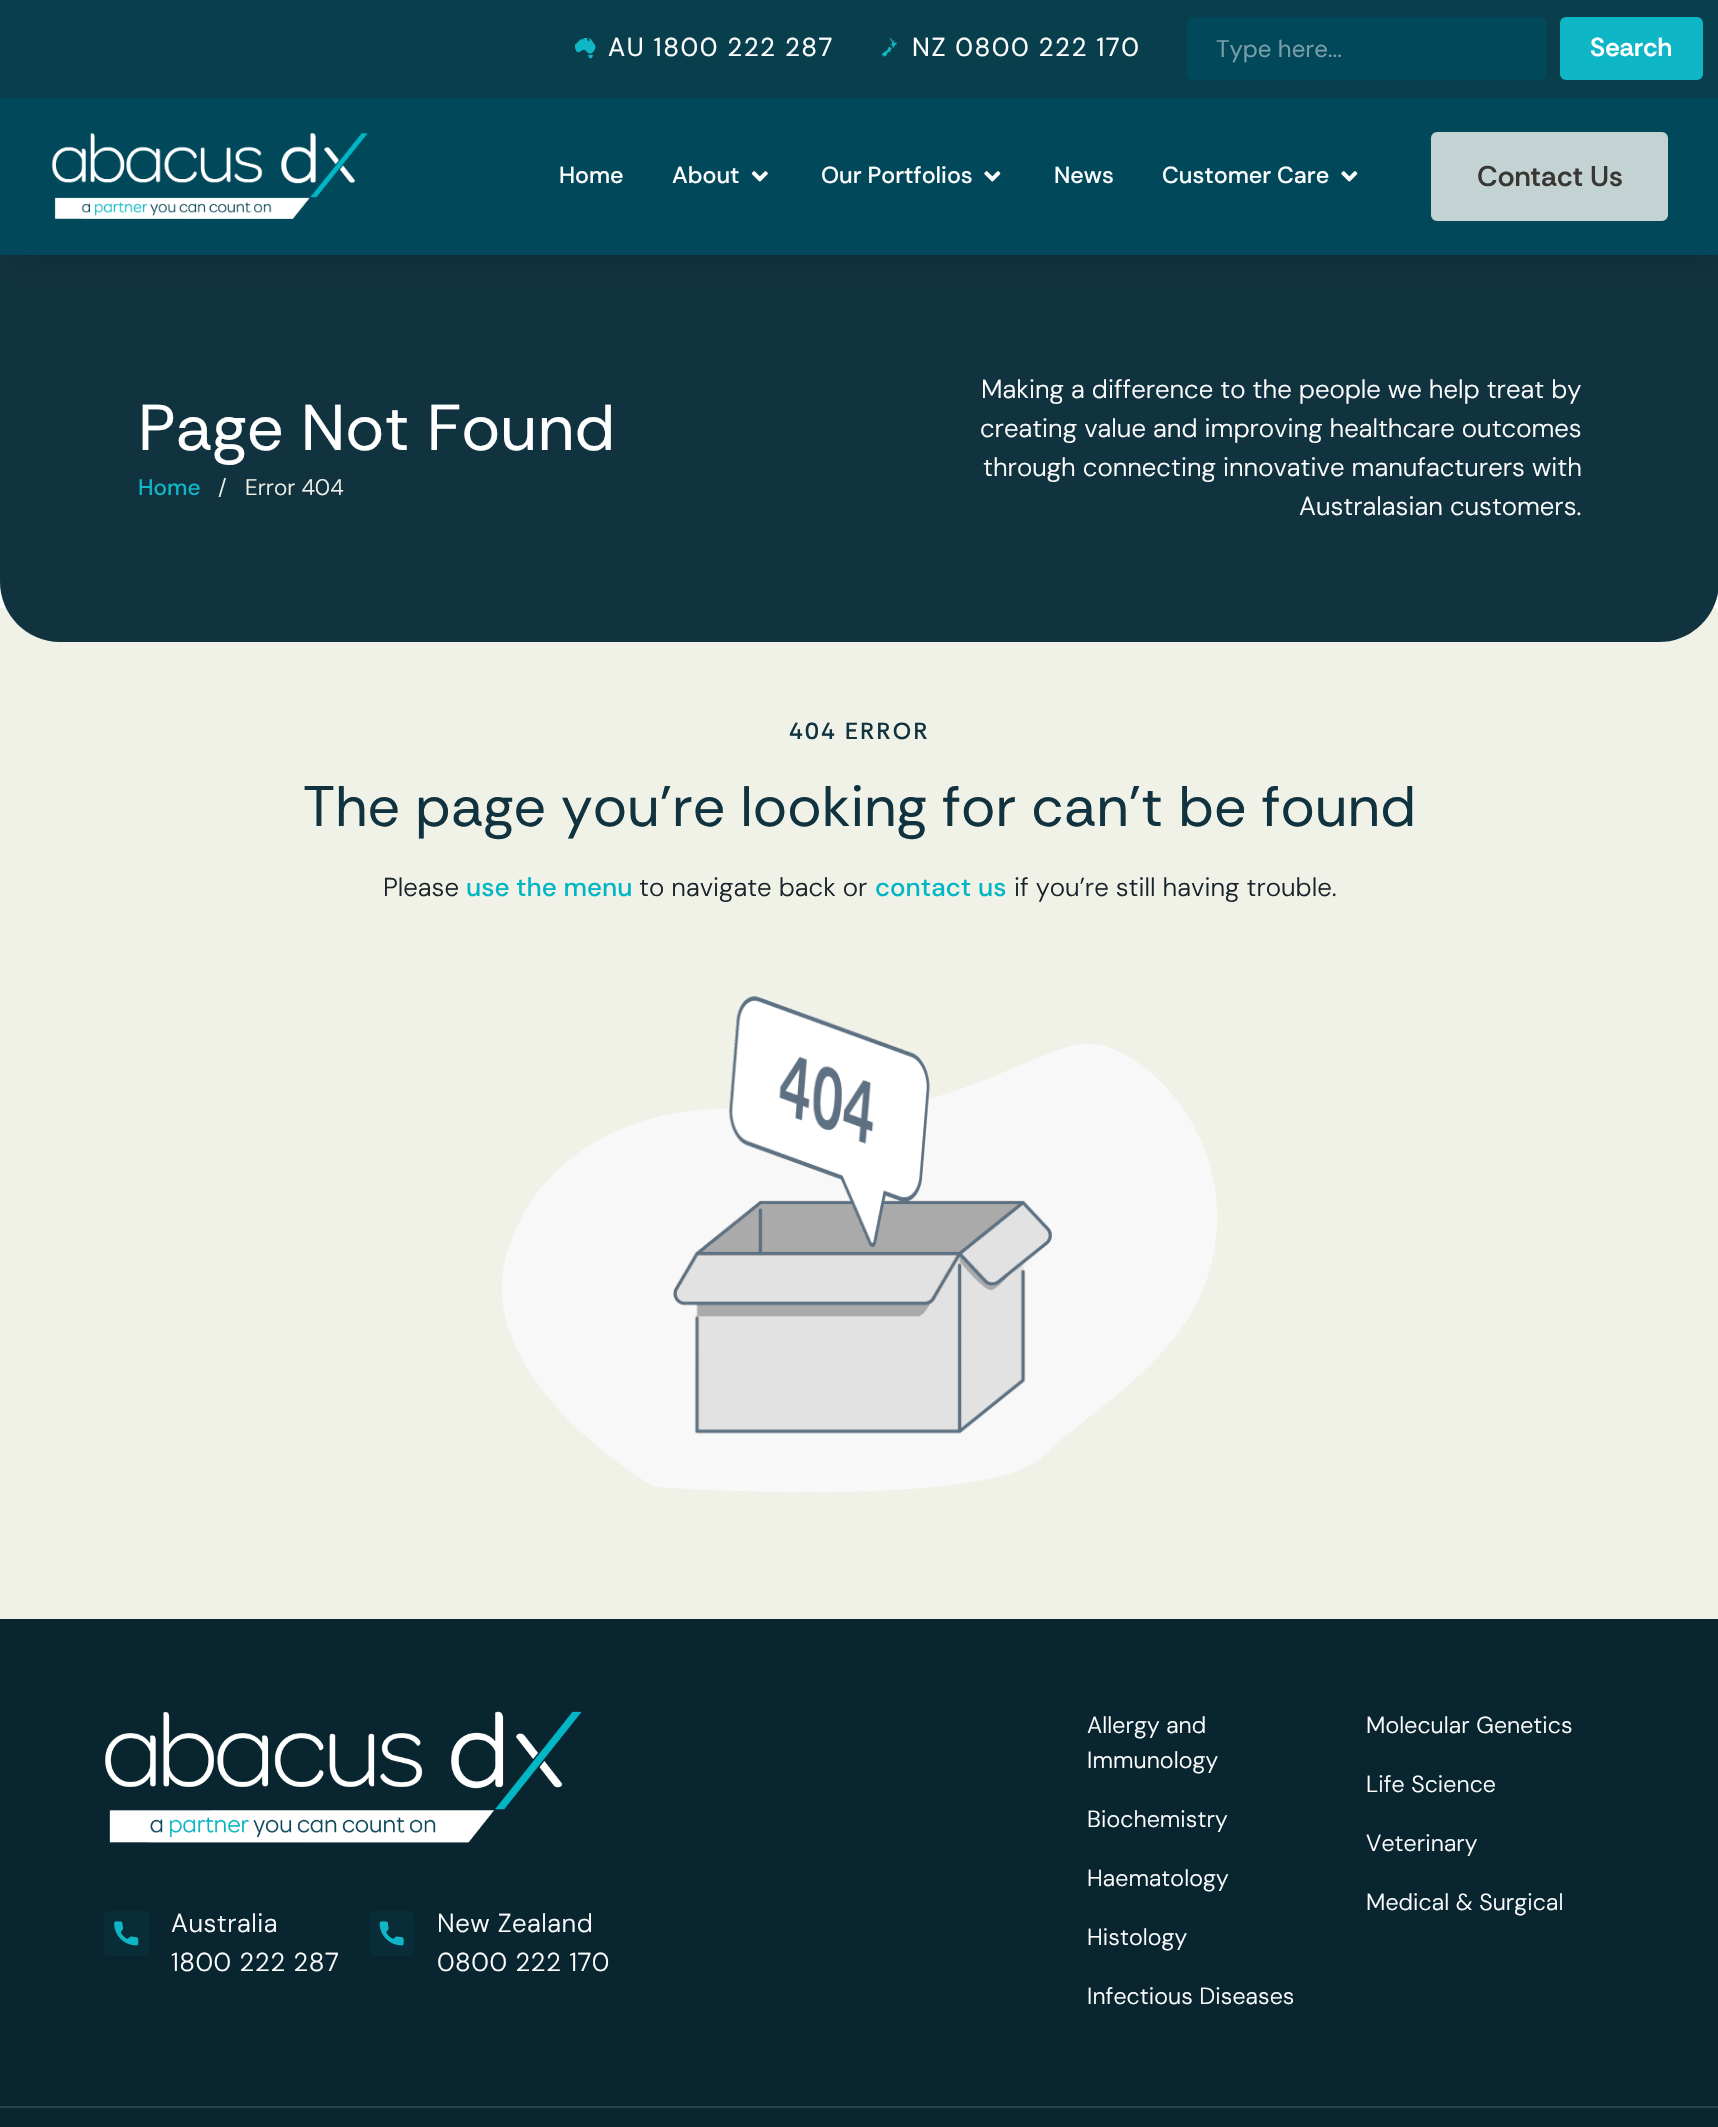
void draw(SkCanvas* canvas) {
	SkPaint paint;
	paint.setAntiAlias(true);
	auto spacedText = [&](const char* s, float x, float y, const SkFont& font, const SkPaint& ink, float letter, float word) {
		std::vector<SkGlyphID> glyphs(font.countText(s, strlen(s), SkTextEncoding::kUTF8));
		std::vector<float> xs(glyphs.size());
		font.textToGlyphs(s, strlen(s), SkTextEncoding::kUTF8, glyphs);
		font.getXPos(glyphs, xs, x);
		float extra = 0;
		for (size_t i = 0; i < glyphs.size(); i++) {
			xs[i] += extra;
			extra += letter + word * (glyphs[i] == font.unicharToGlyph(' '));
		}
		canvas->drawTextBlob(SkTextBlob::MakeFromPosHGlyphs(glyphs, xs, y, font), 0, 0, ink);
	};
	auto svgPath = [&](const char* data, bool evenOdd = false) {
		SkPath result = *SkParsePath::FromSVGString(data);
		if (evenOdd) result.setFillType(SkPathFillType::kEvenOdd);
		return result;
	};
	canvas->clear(0xffffffff);
	paint.setColor(0xfff0f2e7);
	canvas->drawRect(SkRect::MakeXYWH(0, 608, 1718, 1011), paint);
	paint.setColor(0xff11333f);
	canvas->drawPath(svgPath("M0 255H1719V582C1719 615 1692 642 1659 642H60C27 642 0 615 0 582Z"), paint);
	paint.setColor(0x4d05232c);
	paint.setMaskFilter(SkMaskFilter::MakeBlur(kNormal_SkBlurStyle, 11));
	canvas->drawRect(SkRect::MakeXYWH(8, 8, 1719, 255), paint);
	paint.setMaskFilter(nullptr);
	paint.setColor(0xff00485a);
	canvas->drawRect(SkRect::MakeXYWH(0, 98, 1718, 157), paint);
	paint.setColor(0xff093e4d);
	canvas->drawRect(SkRect::MakeXYWH(0, 0, 1718, 98), paint);
	canvas->drawImageRect(SkImages::DeferredFromEncodedData(SkData::MakeFromFileName("img1.png")), SkRect::MakeXYWH(575, 38, 21, 21), SkSamplingOptions());
	SkFont f1(fontMgr->matchFamilyStyle("DM Sans", SkFontStyle::Normal()), 25.9);
	f1.setSubpixel(true);
	paint.setColor(0xffffffff);
	spacedText("AU 1800 222 287", 608, 56, f1, paint, 1.5, 0);
	canvas->drawImageRect(SkImages::DeferredFromEncodedData(SkData::MakeFromFileName("img2.png")), SkRect::MakeXYWH(881, 38, 16, 20), SkSamplingOptions());
	spacedText("NZ 0800 222 170", 912, 56, f1, paint, 1.5, 0);
	paint.setColor(0xff00485a);
	canvas->drawRoundRect(SkRect::MakeXYWH(1187, 17, 360, 63), 6, 6, paint);
	SkFont f2(fontMgr->matchFamilyStyle("DM Sans", SkFontStyle::Normal()), 24);
	f2.setSubpixel(true);
	paint.setColor(0xff789ea8);
	canvas->drawString("Type here...", 1216, 57, f2, paint);
	paint.setColor(0xff0fb6c5);
	canvas->drawRoundRect(SkRect::MakeXYWH(1560, 17, 143, 63), 6, 6, paint);
	SkFont f3(fontMgr->matchFamilyStyle("Rethink Sans", SkFontStyle(600, SkFontStyle::kNormal_Width, SkFontStyle::kUpright_Slant)), 25.9);
	f3.setSubpixel(true);
	paint.setColor(0xffffffff);
	canvas->drawString("Search", 1590, 56, f3, paint);
	canvas->drawImageRect(SkImages::DeferredFromEncodedData(SkData::MakeFromFileName("img3.png")), SkRect::MakeXYWH(51, 132, 317, 87), SkSamplingOptions());
	SkFont f4(fontMgr->matchFamilyStyle("DM Sans", SkFontStyle(500, SkFontStyle::kNormal_Width, SkFontStyle::kUpright_Slant)), 23.25);
	f4.setSubpixel(true);
	canvas->drawString("Home", 559, 183, f4, paint);
	canvas->drawString("About", 672, 183, f4, paint);
	canvas->drawImageRect(SkImages::DeferredFromEncodedData(SkData::MakeFromFileName("img4.png")), SkRect::MakeXYWH(751, 171, 17, 11), SkSamplingOptions());
	canvas->drawString("Our Portfolios", 821, 183, f4, paint);
	canvas->drawImageRect(SkImages::DeferredFromEncodedData(SkData::MakeFromFileName("img5.png")), SkRect::MakeXYWH(984, 171, 17, 11), SkSamplingOptions());
	canvas->drawString("News", 1054, 183, f4, paint);
	canvas->drawString("Customer Care", 1162, 183, f4, paint);
	canvas->drawImageRect(SkImages::DeferredFromEncodedData(SkData::MakeFromFileName("img5.png")), SkRect::MakeXYWH(1341, 171, 17, 11), SkSamplingOptions());
	paint.setColor(0xffc3d3d3);
	canvas->drawRoundRect(SkRect::MakeXYWH(1432.5, 133.5, 234, 86), 4.5, 4.5, paint);
	paint.setStroke(true);
	paint.setStrokeWidth(3);
	canvas->drawRoundRect(SkRect::MakeXYWH(1432.5, 133.5, 234, 86), 4.5, 4.5, paint);
	SkFont f5(fontMgr->matchFamilyStyle("Rethink Sans", SkFontStyle(600, SkFontStyle::kNormal_Width, SkFontStyle::kUpright_Slant)), 28.5);
	f5.setSubpixel(true);
	paint.setStroke(false);
	paint.setColor(0xff383733);
	canvas->drawString("Contact Us", 1477, 186, f5, paint);
	SkFont f6(fontMgr->matchFamilyStyle("Rethink Sans", SkFontStyle::Normal()), 64.75);
	f6.setSubpixel(true);
	paint.setColor(0xffffffff);
	canvas->drawString("Page Not Found", 138, 450, f6, paint);
	SkFont f7(fontMgr->matchFamilyStyle("DM Sans", SkFontStyle(500, SkFontStyle::kNormal_Width, SkFontStyle::kUpright_Slant)), 22.5);
	f7.setSubpixel(true);
	paint.setColor(0xff0fb6c5);
	canvas->drawString("Home", 138, 495, f7, paint);
	SkFont f8(fontMgr->matchFamilyStyle("DM Sans", SkFontStyle(300, SkFontStyle::kNormal_Width, SkFontStyle::kUpright_Slant)), 22.5);
	f8.setSubpixel(true);
	paint.setColor(0xfff0f2e7);
	canvas->drawString("/", 218, 495, f8, paint);
	canvas->drawString("Error 404", 245, 495, f8, paint);
	SkFont f9(fontMgr->matchFamilyStyle("DM Sans", SkFontStyle(300, SkFontStyle::kNormal_Width, SkFontStyle::kUpright_Slant)), 25.9);
	f9.setSubpixel(true);
	paint.setColor(0xffffffff);
	canvas->drawString("Making a difference to the people we help treat by", 981, 398, f9, paint);
	canvas->drawString("creating value and improving healthcare outcomes", 980, 437, f9, paint);
	canvas->drawString("through connecting innovative manufacturers with", 983, 476, f9, paint);
	canvas->drawString("Australasian customers.", 1299, 515, f9, paint);
	SkFont f10(fontMgr->matchFamilyStyle("Rethink Sans", SkFontStyle(500, SkFontStyle::kNormal_Width, SkFontStyle::kUpright_Slant)), 23.25);
	f10.setSubpixel(true);
	paint.setColor(0xff11333f);
	spacedText("404 ERROR", 789, 739, f10, paint, 2.25, 0);
	SkFont f11(fontMgr->matchFamilyStyle("Rethink Sans", SkFontStyle::Normal()), 57);
	f11.setSubpixel(true);
	canvas->drawString("The page you're looking for can't be found", 303, 826, f11, paint);
	paint.setColor(0xff192329);
	canvas->drawString("Please", 383, 896, f9, paint);
	SkFont f12(fontMgr->matchFamilyStyle("DM Sans", SkFontStyle(500, SkFontStyle::kNormal_Width, SkFontStyle::kUpright_Slant)), 25.9);
	f12.setSubpixel(true);
	paint.setColor(0xff00b6c5);
	canvas->drawString("use the menu", 466, 896, f12, paint);
	paint.setColor(0xff192329);
	canvas->drawString("to navigate back or", 639, 896, f9, paint);
	paint.setColor(0xff00b6c5);
	canvas->drawString("contact us", 875, 896, f12, paint);
	paint.setColor(0xff192329);
	canvas->drawString("if you’re still having trouble.", 1014, 896, f9, paint);
	canvas->drawImageRect(SkImages::DeferredFromEncodedData(SkData::MakeFromFileName("img6.png")), SkRect::MakeXYWH(501, 996, 717, 497), SkSamplingOptions());
	paint.setColor(0xff09252f);
	canvas->drawRect(SkRect::MakeXYWH(0, 1619, 1718, 487), paint);
	canvas->drawImageRect(SkImages::DeferredFromEncodedData(SkData::MakeFromFileName("img7.png")), SkRect::MakeXYWH(105, 1711, 477, 132), SkSamplingOptions());
	canvas->drawImageRect(SkImages::DeferredFromEncodedData(SkData::MakeFromFileName("img8.png")), SkRect::MakeXYWH(104, 1911, 45, 45), SkSamplingOptions());
	paint.setColor(0xffffffff);
	spacedText("Australia", 171, 1932, f9, paint, 0.5, 0);
	spacedText("1800 222 287", 171, 1971, f9, paint, 0.5, 0);
	canvas->drawImageRect(SkImages::DeferredFromEncodedData(SkData::MakeFromFileName("img9.png")), SkRect::MakeXYWH(369, 1911, 45, 45), SkSamplingOptions());
	spacedText("New Zealand", 437, 1932, f9, paint, 0.5, 0);
	spacedText("0800 222 170", 437, 1971, f9, paint, 0.5, 0);
	SkFont f13(fontMgr->matchFamilyStyle("DM Sans", SkFontStyle(300, SkFontStyle::kNormal_Width, SkFontStyle::kUpright_Slant)), 23.25);
	f13.setSubpixel(true);
	spacedText("Allergy and", 1087, 1733, f13, paint, 0.1, 0);
	spacedText("Immunology", 1087, 1768, f13, paint, 0.1, 0);
	spacedText("Biochemistry", 1087, 1827, f13, paint, 0.1, 0);
	spacedText("Haematology", 1087, 1886, f13, paint, 0.1, 0);
	spacedText("Histology", 1087, 1945, f13, paint, 0.1, 0);
	spacedText("Infectious Diseases", 1087, 2004, f13, paint, 0.1, 0);
	spacedText("Molecular Genetics", 1366, 1733, f13, paint, 0.1, 0);
	spacedText("Life Science", 1366, 1792, f13, paint, 0.1, 0);
	spacedText("Veterinary", 1366, 1851, f13, paint, 0.1, 0);
	spacedText("Medical & Surgical", 1366, 1910, f13, paint, 0.1, 0);
	paint.setColor(0xff09252f);
	canvas->drawRect(SkRect::MakeXYWH(0, 2108, 1718, 19), paint);
	paint.setColor(0xff2c4249);
	canvas->drawRect(SkRect::MakeXYWH(0, 2106, 1718, 2), paint);
}
